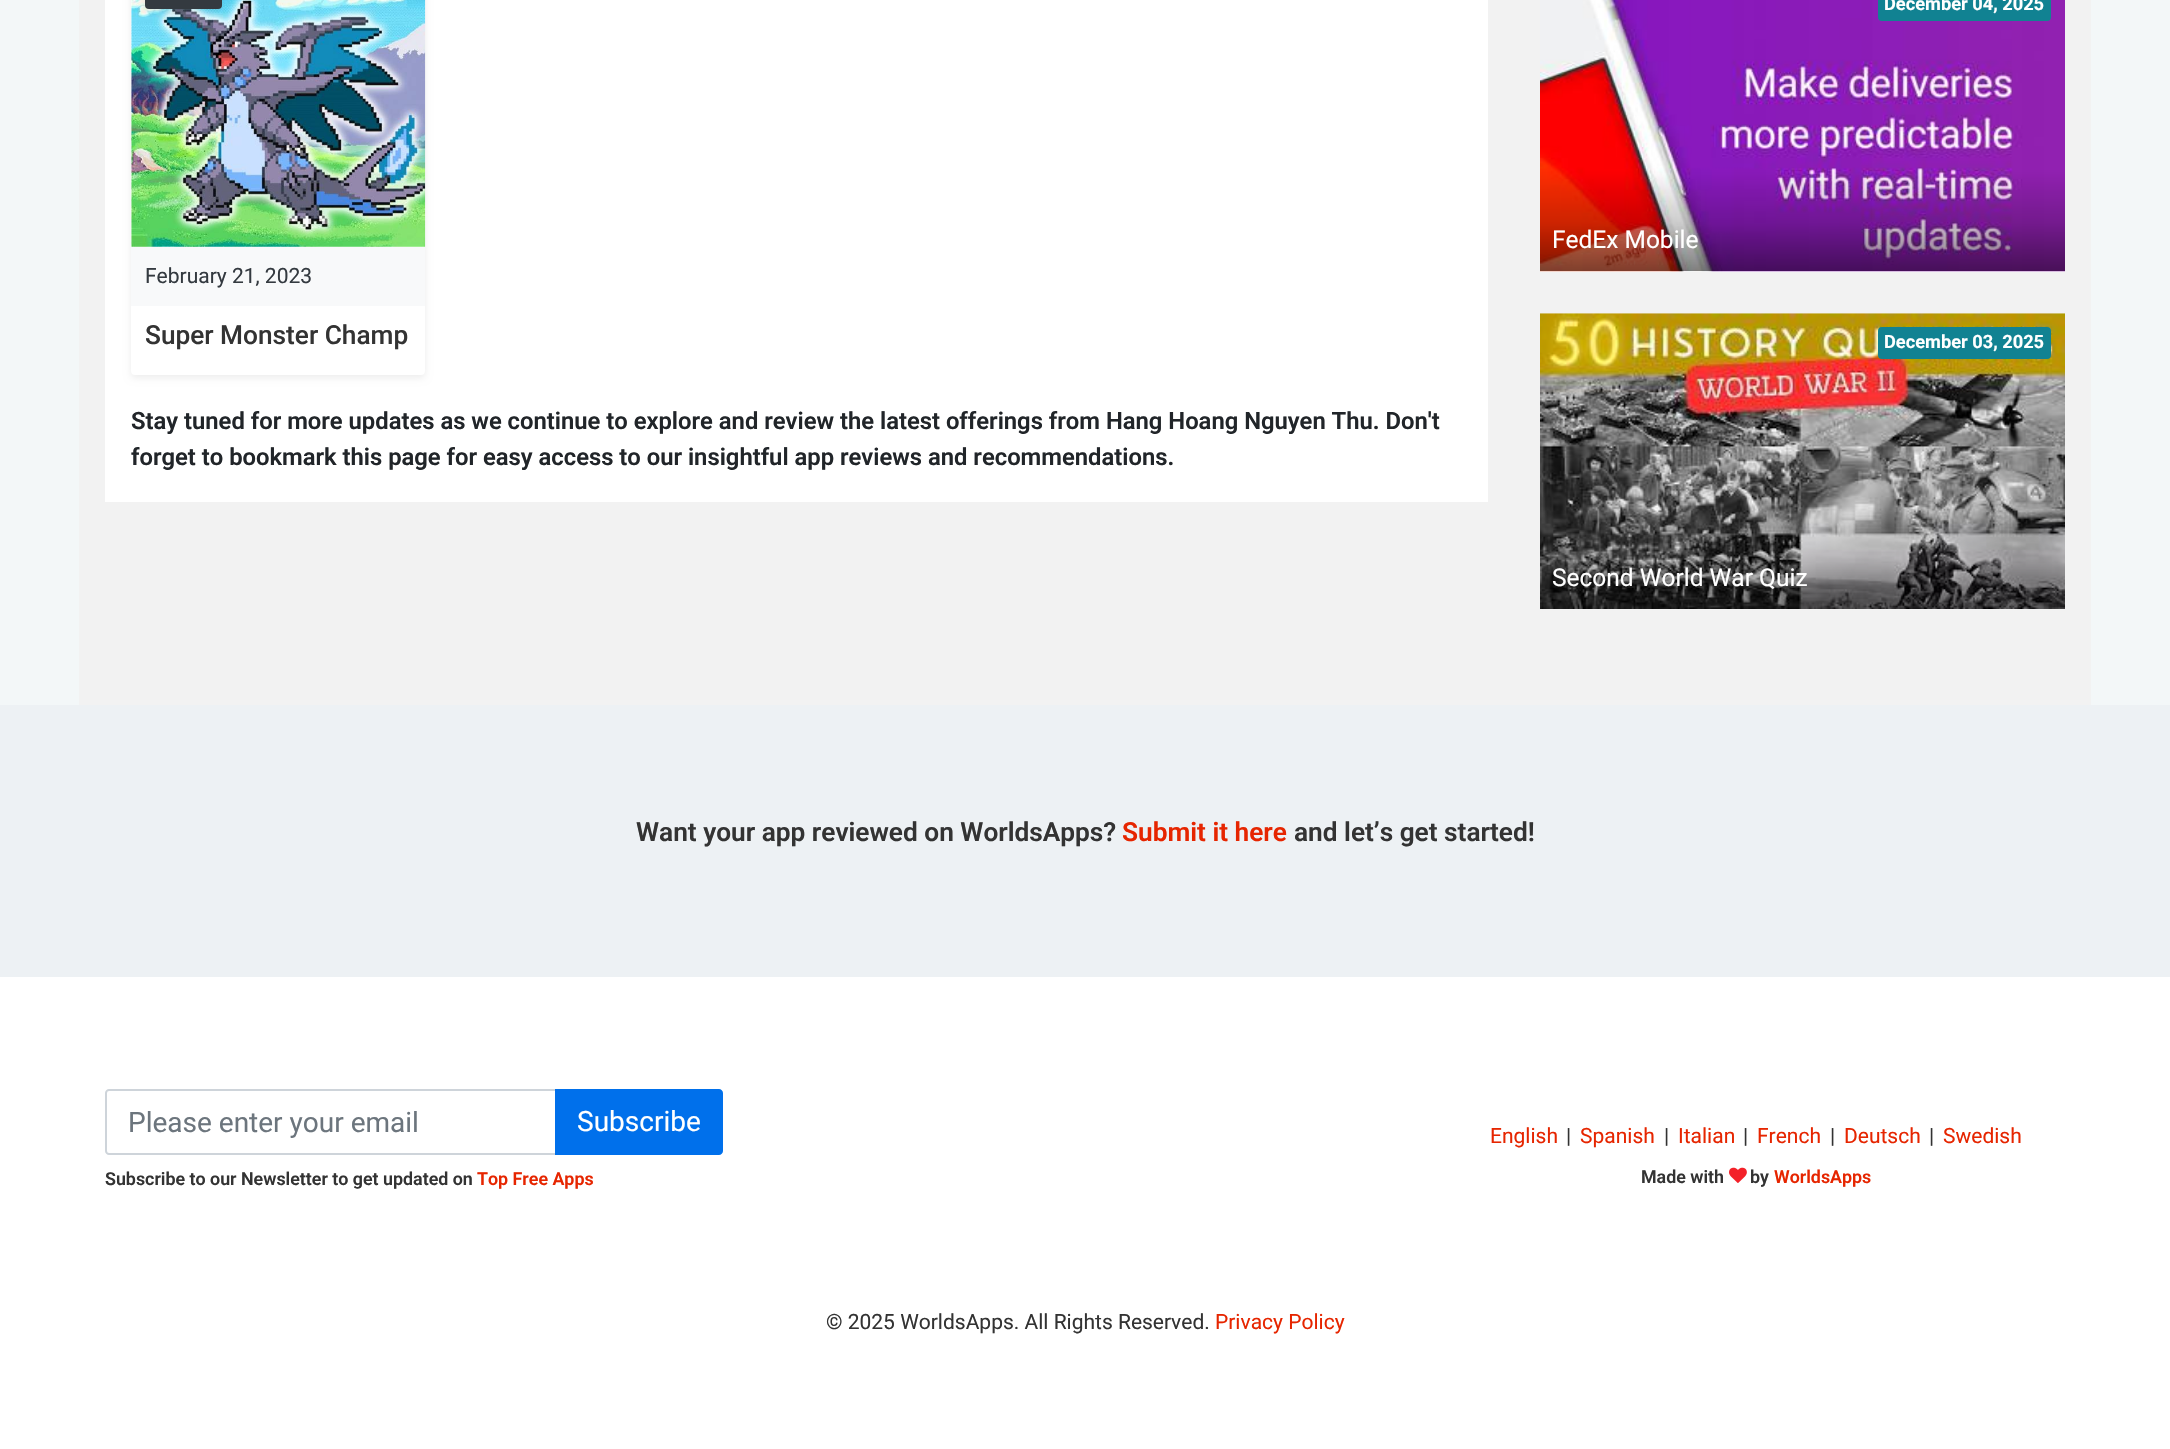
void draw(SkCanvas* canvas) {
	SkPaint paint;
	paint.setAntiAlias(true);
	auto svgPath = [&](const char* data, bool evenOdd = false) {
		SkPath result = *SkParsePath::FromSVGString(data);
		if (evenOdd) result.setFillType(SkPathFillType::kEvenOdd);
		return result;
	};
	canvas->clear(0xfff3f7f8);
	paint.setColor(0xfff2f2f2);
	canvas->drawRect(SkRect::MakeXYWH(79, 0, 2012, 705), paint);
	paint.setColor(0xffffffff);
	canvas->drawRect(SkRect::MakeXYWH(105, 0, 1383, 502), paint);
	paint.setColor(0x12000000);
	paint.setMaskFilter(SkMaskFilter::MakeBlur(kNormal_SkBlurStyle, 3.5));
	canvas->drawRoundRect(SkRect::MakeXYWH(131, -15, 294, 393), 4, 4, paint);
	paint.setMaskFilter(nullptr);
	paint.setColor(0xffffffff);
	canvas->drawRoundRect(SkRect::MakeXYWH(131, -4, 294, 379), 4, 4, paint);
	canvas->drawImageRect(SkImages::DeferredFromEncodedData(SkData::MakeFromFileName("img1.png")), SkRect::MakeXYWH(131, 0, 295, 247), SkSamplingOptions());
	paint.setColor(0x12000000);
	paint.setMaskFilter(SkMaskFilter::MakeBlur(kNormal_SkBlurStyle, 3.5));
	canvas->drawRoundRect(SkRect::MakeXYWH(145, -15, 77, 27), 4, 4, paint);
	paint.setMaskFilter(nullptr);
	paint.setColor(0xff343a40);
	canvas->drawRoundRect(SkRect::MakeXYWH(145, -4, 77, 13), 4, 4, paint);
	paint.setColor(0xfff8f9fa);
	canvas->drawRect(SkRect::MakeXYWH(131, 247, 294, 59), paint);
	SkFont f1(fontMgr->matchFamilyStyle("Roboto", SkFontStyle::Normal()), 21);
	f1.setSubpixel(true);
	paint.setColor(0xff343a40);
	canvas->drawString("February 21, 2023", 145, 283, f1, paint);
	SkFont f2(fontMgr->matchFamilyStyle("Roboto", SkFontStyle(500, SkFontStyle::kNormal_Width, SkFontStyle::kUpright_Slant)), 26.25);
	f2.setSubpixel(true);
	paint.setColor(0xff333333);
	canvas->drawString("Super Monster Champ", 145, 344, f2, paint);
	SkFont f3(fontMgr->matchFamilyStyle("Roboto", SkFontStyle(600, SkFontStyle::kNormal_Width, SkFontStyle::kUpright_Slant)), 23.8);
	f3.setSubpixel(true);
	paint.setColor(0xff212529);
	canvas->drawString("Stay tuned for more updates as we continue to explore and review the latest offerings from Hang Hoang Nguyen Thu. Don't", 131, 429, f3, paint);
	canvas->drawString("forget to bookmark this page for easy access to our insightful app reviews and recommendations.", 131, 465, f3, paint);
	canvas->drawImageRect(SkImages::DeferredFromEncodedData(SkData::MakeFromFileName("img2.png")), SkRect::MakeXYWH(1540, 0, 525, 272), SkSamplingOptions());
	paint.setColor(0xff118292);
	canvas->drawRoundRect(SkRect::MakeXYWH(1878, -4, 173, 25), 4, 4, paint);
	SkFont f4(fontMgr->matchFamilyStyle("Roboto", SkFontStyle::Bold()), 18.25);
	f4.setSubpixel(true);
	paint.setColor(0xffffffff);
	canvas->drawString("December 04, 2025", 1884, 10, f4, paint);
	SkFont f5(fontMgr->matchFamilyStyle("Roboto", SkFontStyle::Normal()), 24.5);
	f5.setSubpixel(true);
	canvas->drawString("FedEx Mobile", 1552, 248, f5, paint);
	canvas->drawImageRect(SkImages::DeferredFromEncodedData(SkData::MakeFromFileName("img3.png")), SkRect::MakeXYWH(1540, 313, 525, 296), SkSamplingOptions());
	paint.setColor(0xff118292);
	canvas->drawRoundRect(SkRect::MakeXYWH(1878, 327, 173, 32), 4, 4, paint);
	paint.setColor(0xffffffff);
	canvas->drawString("December 03, 2025", 1884, 348, f4, paint);
	canvas->drawString("Second World War Quiz", 1552, 586, f5, paint);
	paint.setColor(0xffedf1f4);
	canvas->drawRect(SkRect::MakeXYWH(0, 705, 2170, 272), paint);
	SkFont f6(fontMgr->matchFamilyStyle("Roboto", SkFontStyle(600, SkFontStyle::kNormal_Width, SkFontStyle::kUpright_Slant)), 26.25);
	f6.setSubpixel(true);
	paint.setColor(0xff333333);
	canvas->drawString("Want your app reviewed on WorldsApps?", 636, 841, f6, paint);
	paint.setColor(0xffe62500);
	canvas->drawString("Submit it here", 1122, 841, f6, paint);
	paint.setColor(0xff333333);
	canvas->drawString("and let’s get started!", 1294, 841, f6, paint);
	paint.setColor(0xffffffff);
	canvas->drawRect(SkRect::MakeXYWH(0, 977, 2170, 472), paint);
	paint.setStroke(true);
	paint.setStrokeWidth(2);
	paint.setColor(0xffced4da);
	canvas->drawPath(svgPath("M109 1090H556V1154H109C107.5 1154 106 1152.5 106 1151V1093C106 1091.5 107.5 1090 109 1090Z"), paint);
	SkFont f7(fontMgr->matchFamilyStyle("Roboto", SkFontStyle::Normal()), 28);
	f7.setSubpixel(true);
	paint.setStroke(false);
	paint.setColor(0xff6c757d);
	canvas->drawString("Please enter your email", 128, 1132, f7, paint);
	paint.setColor(0xff0070eb);
	canvas->drawPath(svgPath("M556 1090H719C720.5 1090 722 1091.5 722 1093V1151C722 1152.5 720.5 1154 719 1154H556Z"), paint);
	paint.setStroke(true);
	canvas->drawPath(svgPath("M556 1090H719C720.5 1090 722 1091.5 722 1093V1151C722 1152.5 720.5 1154 719 1154H556Z"), paint);
	paint.setStroke(false);
	paint.setColor(0xffffffff);
	canvas->drawString("Subscribe", 577, 1131, f7, paint);
	SkFont f8(fontMgr->matchFamilyStyle("Roboto", SkFontStyle(600, SkFontStyle::kNormal_Width, SkFontStyle::kUpright_Slant)), 17.85);
	f8.setSubpixel(true);
	paint.setColor(0xff333333);
	canvas->drawString("Subscribe to our Newsletter to get updated on", 105, 1185, f8, paint);
	paint.setColor(0xffe62500);
	canvas->drawString("Top Free Apps", 477, 1185, f8, paint);
	canvas->drawString("English", 1490, 1143, f1, paint);
	paint.setColor(0xff333333);
	canvas->drawString("|", 1566, 1143, f1, paint);
	paint.setColor(0xffe62500);
	canvas->drawString("Spanish", 1580, 1143, f1, paint);
	paint.setColor(0xff333333);
	canvas->drawString("|", 1664, 1143, f1, paint);
	paint.setColor(0xffe62500);
	canvas->drawString("Italian", 1678, 1143, f1, paint);
	paint.setColor(0xff333333);
	canvas->drawString("|", 1743, 1143, f1, paint);
	paint.setColor(0xffe62500);
	canvas->drawString("French", 1757, 1143, f1, paint);
	paint.setColor(0xff333333);
	canvas->drawString("|", 1830, 1143, f1, paint);
	paint.setColor(0xffe62500);
	canvas->drawString("Deutsch", 1844, 1143, f1, paint);
	paint.setColor(0xff333333);
	canvas->drawString("|", 1929, 1143, f1, paint);
	paint.setColor(0xffe62500);
	canvas->drawString("Swedish", 1943, 1143, f1, paint);
	paint.setColor(0xff333333);
	canvas->drawString("Made with", 1641, 1183, f8, paint);
	canvas->drawImageRect(SkImages::DeferredFromEncodedData(SkData::MakeFromFileName("img4.png")), SkRect::MakeXYWH(1729, 1167, 18, 16), SkSamplingOptions());
	canvas->drawString("by", 1750, 1183, f8, paint);
	paint.setColor(0xffe62500);
	canvas->drawString("WorldsApps", 1774, 1183, f8, paint);
	paint.setColor(0xff333333);
	canvas->drawString("© 2025 WorldsApps. All Rights Reserved.", 826, 1329, f1, paint);
	paint.setColor(0xffe62500);
	canvas->drawString("Privacy Policy", 1215, 1329, f1, paint);
}
